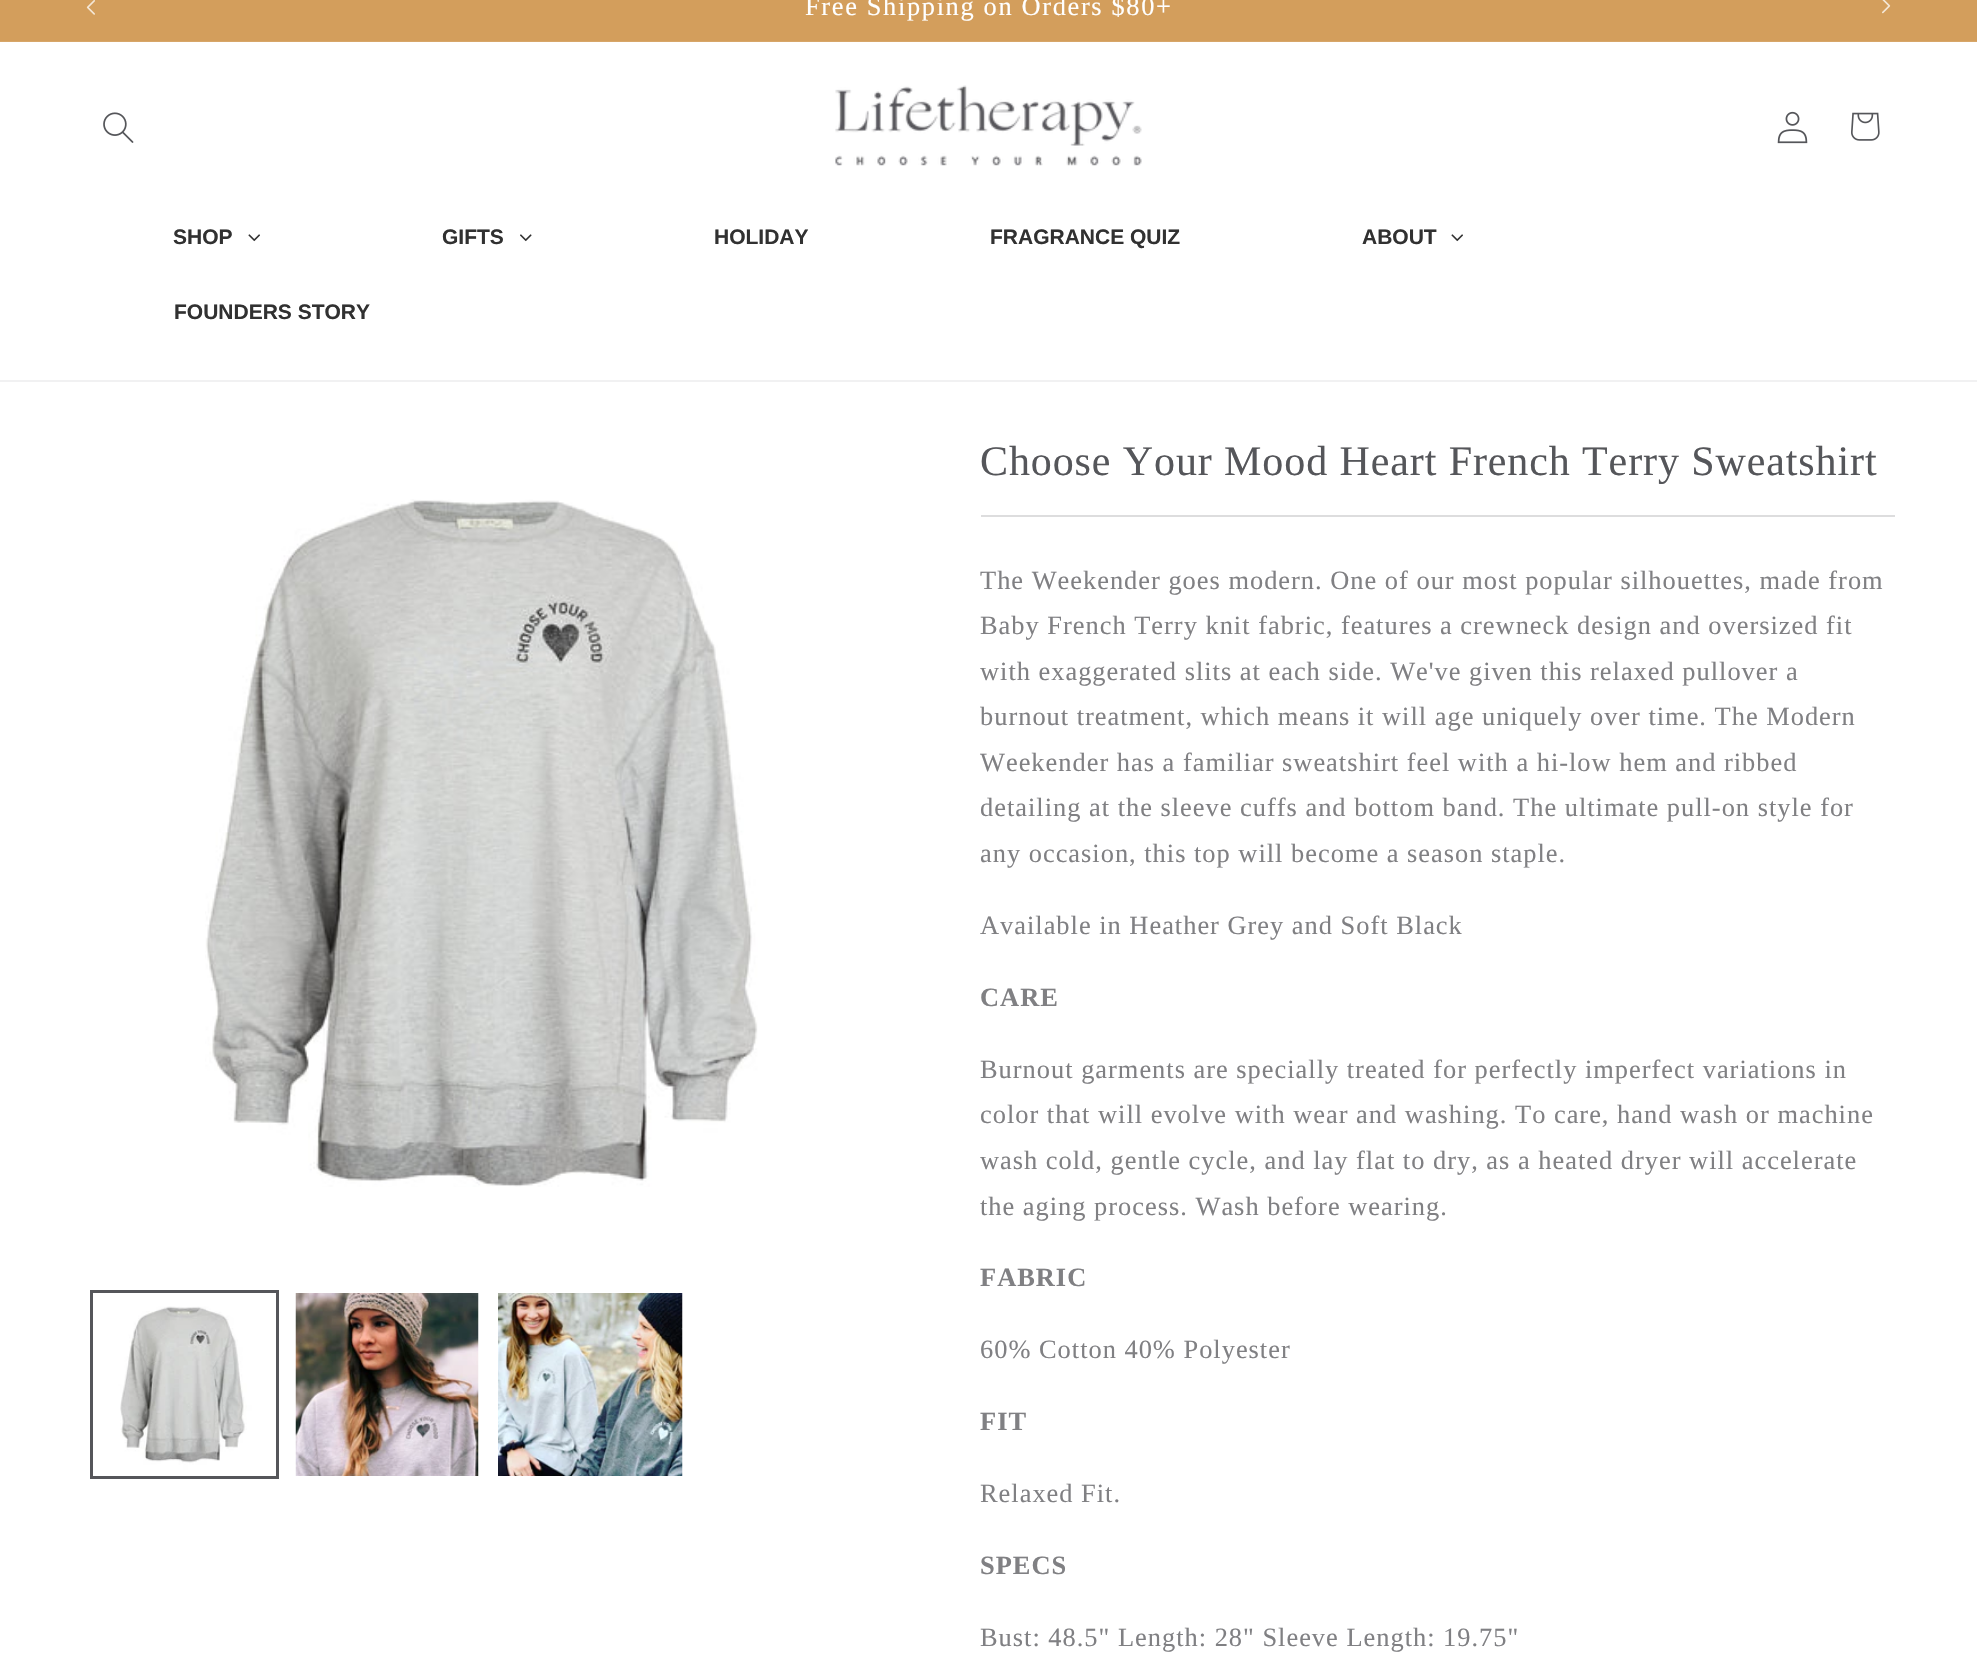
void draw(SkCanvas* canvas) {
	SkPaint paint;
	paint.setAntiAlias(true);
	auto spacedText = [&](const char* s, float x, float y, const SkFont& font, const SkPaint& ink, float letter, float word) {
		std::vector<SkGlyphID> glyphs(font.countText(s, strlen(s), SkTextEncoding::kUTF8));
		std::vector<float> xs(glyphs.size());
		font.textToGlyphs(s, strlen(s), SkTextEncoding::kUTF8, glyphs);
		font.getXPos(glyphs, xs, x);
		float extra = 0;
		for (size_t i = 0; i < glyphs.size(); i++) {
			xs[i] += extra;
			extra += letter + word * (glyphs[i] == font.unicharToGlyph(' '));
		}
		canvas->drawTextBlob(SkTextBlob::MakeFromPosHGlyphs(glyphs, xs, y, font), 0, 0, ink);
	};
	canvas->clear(0xffffffff);
	paint.setColor(0xffd39e5c);
	canvas->drawRect(SkRect::MakeXYWH(0, 0, 1977, 41), paint);
	paint.setColor(0xffd7a669);
	canvas->drawRect(SkRect::MakeXYWH(0, 41, 1977, 1), paint);
	canvas->drawImageRect(SkImages::DeferredFromEncodedData(SkData::MakeFromFileName("img1.png")), SkRect::MakeXYWH(86, 0, 9, 15), SkSamplingOptions());
	SkFont f1(fontMgr->matchFamilyStyle("Liberation Serif", SkFontStyle::Normal()), 26.4);
	f1.setSubpixel(true);
	paint.setColor(0xffffffff);
	spacedText("Free Shipping on Orders $80+", 805, 15, f1, paint, 1.65, 0);
	canvas->drawImageRect(SkImages::DeferredFromEncodedData(SkData::MakeFromFileName("img2.png")), SkRect::MakeXYWH(1882, 0, 9, 14), SkSamplingOptions());
	paint.setColor(0xfff1f1f2);
	canvas->drawRect(SkRect::MakeXYWH(0, 380, 1977, 2), paint);
	canvas->drawImageRect(SkImages::DeferredFromEncodedData(SkData::MakeFromFileName("img3.png")), SkRect::MakeXYWH(103, 112, 31, 31), SkSamplingOptions());
	canvas->drawImageRect(SkImages::DeferredFromEncodedData(SkData::MakeFromFileName("img4.png")), SkRect::MakeXYWH(835, 85, 307, 81), SkSamplingOptions());
	canvas->drawImageRect(SkImages::DeferredFromEncodedData(SkData::MakeFromFileName("img5.png")), SkRect::MakeXYWH(1777, 111, 31, 33), SkSamplingOptions());
	canvas->drawImageRect(SkImages::DeferredFromEncodedData(SkData::MakeFromFileName("img6.png")), SkRect::MakeXYWH(1851, 112, 29, 29), SkSamplingOptions());
	SkFont f2(fontMgr->matchFamilyStyle("Liberation Sans", SkFontStyle::Bold()), 21);
	f2.setSubpixel(true);
	paint.setColor(0xff313131);
	canvas->drawString("SHOP", 173, 244, f2, paint);
	canvas->drawImageRect(SkImages::DeferredFromEncodedData(SkData::MakeFromFileName("img7.png")), SkRect::MakeXYWH(248, 234, 12, 8), SkSamplingOptions());
	canvas->drawString("GIFTS", 442, 244, f2, paint);
	canvas->drawImageRect(SkImages::DeferredFromEncodedData(SkData::MakeFromFileName("img8.png")), SkRect::MakeXYWH(520, 234, 12, 8), SkSamplingOptions());
	canvas->drawString("HOLIDAY", 714, 244, f2, paint);
	canvas->drawString("FRAGRANCE QUIZ", 990, 244, f2, paint);
	canvas->drawString("ABOUT", 1362, 244, f2, paint);
	canvas->drawImageRect(SkImages::DeferredFromEncodedData(SkData::MakeFromFileName("img7.png")), SkRect::MakeXYWH(1451, 234, 12, 8), SkSamplingOptions());
	canvas->drawString("FOUNDERS STORY", 174, 319, f2, paint);
	canvas->drawImageRect(SkImages::DeferredFromEncodedData(SkData::MakeFromFileName("img9.png")), SkRect::MakeXYWH(205, 499, 553, 688), SkSamplingOptions());
	paint.setStroke(true);
	paint.setStrokeWidth(2);
	paint.setColor(0xff55565a);
	canvas->drawRect(SkRect::MakeXYWH(91, 1291, 187, 187), paint);
	canvas->drawRect(SkRect::MakeXYWH(93, 1293, 184, 184), paint);
	canvas->drawImageRect(SkImages::DeferredFromEncodedData(SkData::MakeFromFileName("img10.png")), SkRect::MakeXYWH(93, 1293, 183, 183), SkSamplingOptions());
	canvas->drawImageRect(SkImages::DeferredFromEncodedData(SkData::MakeFromFileName("img11.png")), SkRect::MakeXYWH(295, 1293, 184, 183), SkSamplingOptions());
	canvas->drawImageRect(SkImages::DeferredFromEncodedData(SkData::MakeFromFileName("img12.png")), SkRect::MakeXYWH(498, 1293, 185, 183), SkSamplingOptions());
	SkFont f3(fontMgr->matchFamilyStyle("Liberation Serif", SkFontStyle::Normal()), 42);
	f3.setSubpixel(true);
	paint.setStroke(false);
	spacedText("Choose Your Mood Heart French Terry Sweatshirt", 980, 475, f3, paint, 0.9, 0);
	paint.setColor(0xffddddde);
	canvas->drawRect(SkRect::MakeXYWH(981, 515, 914, 2), paint);
	paint.setColor(0xff808083);
	spacedText("The Weekender goes modern. One of our most popular silhouettes, made from", 980, 589, f1, paint, 1, 0);
	spacedText("Baby French Terry knit fabric, features a crewneck design and oversized fit", 980, 634, f1, paint, 1, 0);
	spacedText("with exaggerated slits at each side. We've given this relaxed pullover a", 980, 680, f1, paint, 1, 0);
	spacedText("burnout treatment, which means it will age uniquely over time. The Modern", 980, 725, f1, paint, 1, 0);
	spacedText("Weekender has a familiar sweatshirt feel with a hi-low hem and ribbed", 980, 771, f1, paint, 1, 0);
	spacedText("detailing at the sleeve cuffs and bottom band. The ultimate pull-on style for", 980, 816, f1, paint, 1, 0);
	spacedText("any occasion, this top will become a season staple.", 980, 862, f1, paint, 1, 0);
	spacedText("Available in Heather Grey and Soft Black", 980, 934, f1, paint, 1, 0);
	SkFont f4(fontMgr->matchFamilyStyle("Liberation Serif", SkFontStyle::Bold()), 26.4);
	f4.setSubpixel(true);
	spacedText("CARE", 980, 1006, f4, paint, 1, 0);
	spacedText("Burnout garments are specially treated for perfectly imperfect variations in", 980, 1078, f1, paint, 1, 0);
	spacedText("color that will evolve with wear and washing. To care, hand wash or machine", 980, 1123, f1, paint, 1, 0);
	spacedText("wash cold, gentle cycle, and lay flat to dry, as a heated dryer will accelerate", 980, 1169, f1, paint, 1, 0);
	spacedText("the aging process. Wash before wearing.", 980, 1215, f1, paint, 1, 0);
	spacedText("FABRIC", 980, 1286, f4, paint, 1, 0);
	spacedText("60% Cotton 40% Polyester", 980, 1358, f1, paint, 1, 0);
	spacedText("FIT", 980, 1430, f4, paint, 1, 0);
	spacedText("Relaxed Fit.", 980, 1502, f1, paint, 1, 0);
	spacedText("SPECS", 980, 1574, f4, paint, 1, 0);
	spacedText("Bust: 48.5\" Length: 28\" Sleeve Length: 19.75\"", 980, 1646, f1, paint, 1, 0);
}
